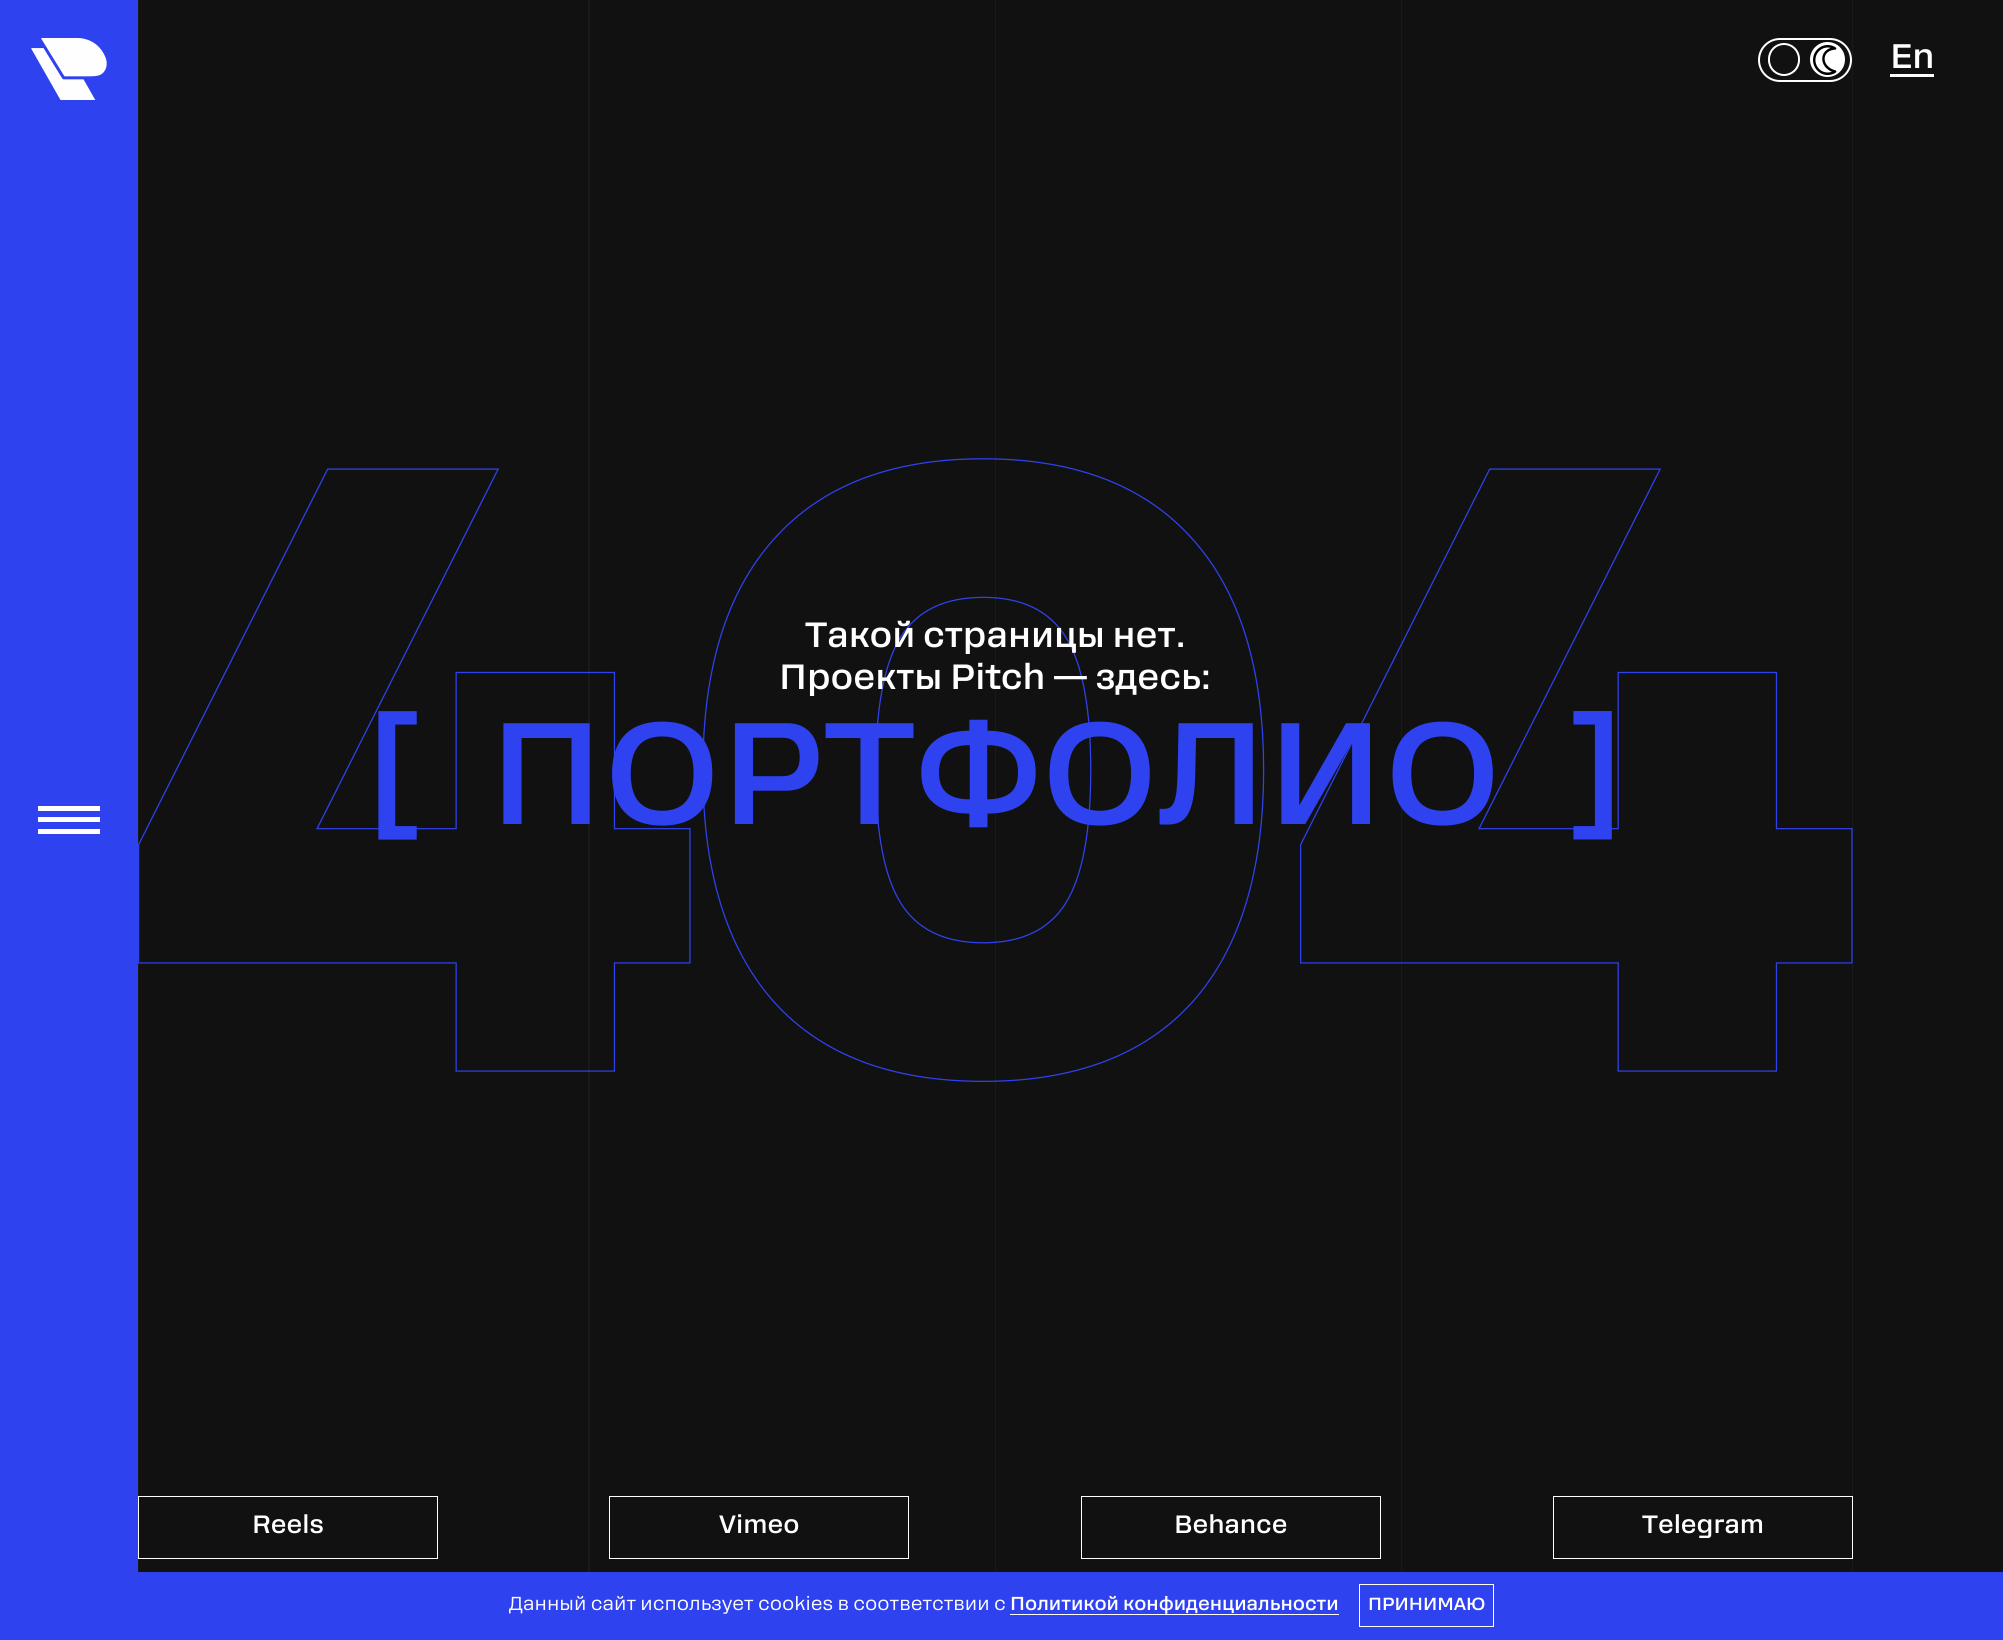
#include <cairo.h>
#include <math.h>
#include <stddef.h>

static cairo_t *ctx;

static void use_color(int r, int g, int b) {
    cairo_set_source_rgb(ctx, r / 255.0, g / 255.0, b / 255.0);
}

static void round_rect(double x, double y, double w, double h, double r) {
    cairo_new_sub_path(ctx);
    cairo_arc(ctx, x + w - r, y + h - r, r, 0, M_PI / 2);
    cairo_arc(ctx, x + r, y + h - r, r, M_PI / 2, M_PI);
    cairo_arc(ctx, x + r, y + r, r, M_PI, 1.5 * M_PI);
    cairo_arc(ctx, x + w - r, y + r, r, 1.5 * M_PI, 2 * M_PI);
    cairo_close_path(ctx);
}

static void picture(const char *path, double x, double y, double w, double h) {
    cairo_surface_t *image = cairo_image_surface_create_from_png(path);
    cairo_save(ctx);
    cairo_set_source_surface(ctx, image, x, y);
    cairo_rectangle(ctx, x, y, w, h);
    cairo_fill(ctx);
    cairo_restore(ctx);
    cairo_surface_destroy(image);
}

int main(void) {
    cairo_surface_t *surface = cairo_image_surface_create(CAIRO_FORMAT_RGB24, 2003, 1640);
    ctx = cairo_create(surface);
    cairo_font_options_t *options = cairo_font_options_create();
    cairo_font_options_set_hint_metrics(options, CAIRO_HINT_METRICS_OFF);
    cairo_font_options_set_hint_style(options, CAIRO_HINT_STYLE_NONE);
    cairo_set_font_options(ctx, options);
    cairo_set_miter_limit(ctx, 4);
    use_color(17, 17, 17);
    cairo_paint(ctx);
    use_color(47, 66, 240);
    cairo_rectangle(ctx, 0, 0, 138, 1640);
    cairo_fill(ctx);
    picture("img1.png", 31, 38, 76, 62);
    use_color(255, 255, 255);
    cairo_rectangle(ctx, 38, 806, 62, 5);
    cairo_fill(ctx);
    cairo_rectangle(ctx, 38, 817, 62, 5);
    cairo_fill(ctx);
    cairo_rectangle(ctx, 38, 829, 62, 5);
    cairo_fill(ctx);
    use_color(26, 26, 26);
    cairo_rectangle(ctx, 138, 0, 1, 1572);
    cairo_fill(ctx);
    cairo_rectangle(ctx, 588, 0, 2, 1572);
    cairo_fill(ctx);
    cairo_rectangle(ctx, 995, 0, 1, 1572);
    cairo_fill(ctx);
    cairo_rectangle(ctx, 1401, 0, 1, 1572);
    cairo_fill(ctx);
    cairo_rectangle(ctx, 1852, 0, 1, 1572);
    cairo_fill(ctx);
    round_rect(1759, 39, 92, 42, 21);
    use_color(255, 255, 255);
    cairo_stroke(ctx);
    round_rect(1769, 44, 30, 31, 15);
    cairo_stroke(ctx);
    cairo_arc(ctx, 1827.5, 59.5, 17.5, 0, 2 * M_PI);
    cairo_fill(ctx);
    picture("img2.png", 1813, 45, 24, 30);
    cairo_select_font_face(ctx, "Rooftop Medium", CAIRO_FONT_SLANT_NORMAL, CAIRO_FONT_WEIGHT_NORMAL);
    cairo_set_font_size(ctx, 34);
    cairo_move_to(ctx, 1890, 68);
    cairo_show_text(ctx, "En");
    cairo_rectangle(ctx, 1890, 74, 44, 3);
    cairo_fill(ctx);
    picture("img3.png", 138, 458, 1715, 624);
    cairo_set_font_size(ctx, 35);
    cairo_move_to(ctx, 805, 647);
    cairo_show_text(ctx, "Такой страницы нет.");
    cairo_move_to(ctx, 779, 689);
    cairo_show_text(ctx, "Проекты Pitch — здесь:");
    cairo_set_font_size(ctx, 144);
    use_color(47, 66, 240);
    cairo_move_to(ctx, 364, 817);
    cairo_show_text(ctx, "[");
    cairo_move_to(ctx, 489, 824);
    cairo_show_text(ctx, "ПОРТФОЛИО");
    cairo_move_to(ctx, 1570, 817);
    cairo_show_text(ctx, "]");
    cairo_rectangle(ctx, 138.5, 1496.5, 299, 62);
    use_color(255, 255, 255);
    cairo_set_line_width(ctx, 1);
    cairo_stroke(ctx);
    cairo_set_font_size(ctx, 25);
    cairo_move_to(ctx, 252, 1533);
    cairo_show_text(ctx, "Reels");
    cairo_rectangle(ctx, 609.5, 1496.5, 299, 62);
    cairo_stroke(ctx);
    cairo_move_to(ctx, 719, 1533);
    cairo_show_text(ctx, "Vimeo");
    cairo_rectangle(ctx, 1081.5, 1496.5, 299, 62);
    cairo_stroke(ctx);
    cairo_move_to(ctx, 1174, 1533);
    cairo_show_text(ctx, "Behance");
    cairo_rectangle(ctx, 1553.5, 1496.5, 299, 62);
    cairo_stroke(ctx);
    cairo_move_to(ctx, 1642, 1533);
    cairo_show_text(ctx, "Telegram");
    use_color(47, 66, 240);
    cairo_rectangle(ctx, 138, 1572, 1865, 68);
    cairo_fill(ctx);
    cairo_select_font_face(ctx, "Rooftop", CAIRO_FONT_SLANT_NORMAL, CAIRO_FONT_WEIGHT_NORMAL);
    cairo_set_font_size(ctx, 18.75);
    use_color(255, 255, 255);
    cairo_move_to(ctx, 509, 1610);
    cairo_show_text(ctx, "Данный сайт использует cookies в соответствии с");
    cairo_select_font_face(ctx, "Rooftop Medium", CAIRO_FONT_SLANT_NORMAL, CAIRO_FONT_WEIGHT_NORMAL);
    cairo_move_to(ctx, 1010, 1610);
    cairo_show_text(ctx, "Политикой конфиденциальности");
    cairo_rectangle(ctx, 1010, 1614, 329, 1);
    cairo_fill(ctx);
    cairo_rectangle(ctx, 1359.5, 1584.5, 134, 42);
    cairo_stroke(ctx);
    cairo_set_font_size(ctx, 17.5);
    cairo_move_to(ctx, 1368, 1610);
    cairo_show_text(ctx, "ПРИНИМАЮ");
    cairo_surface_write_to_png(surface, "result.png");
    cairo_font_options_destroy(options);
    cairo_destroy(ctx);
    cairo_surface_destroy(surface);
    return 0;
}
